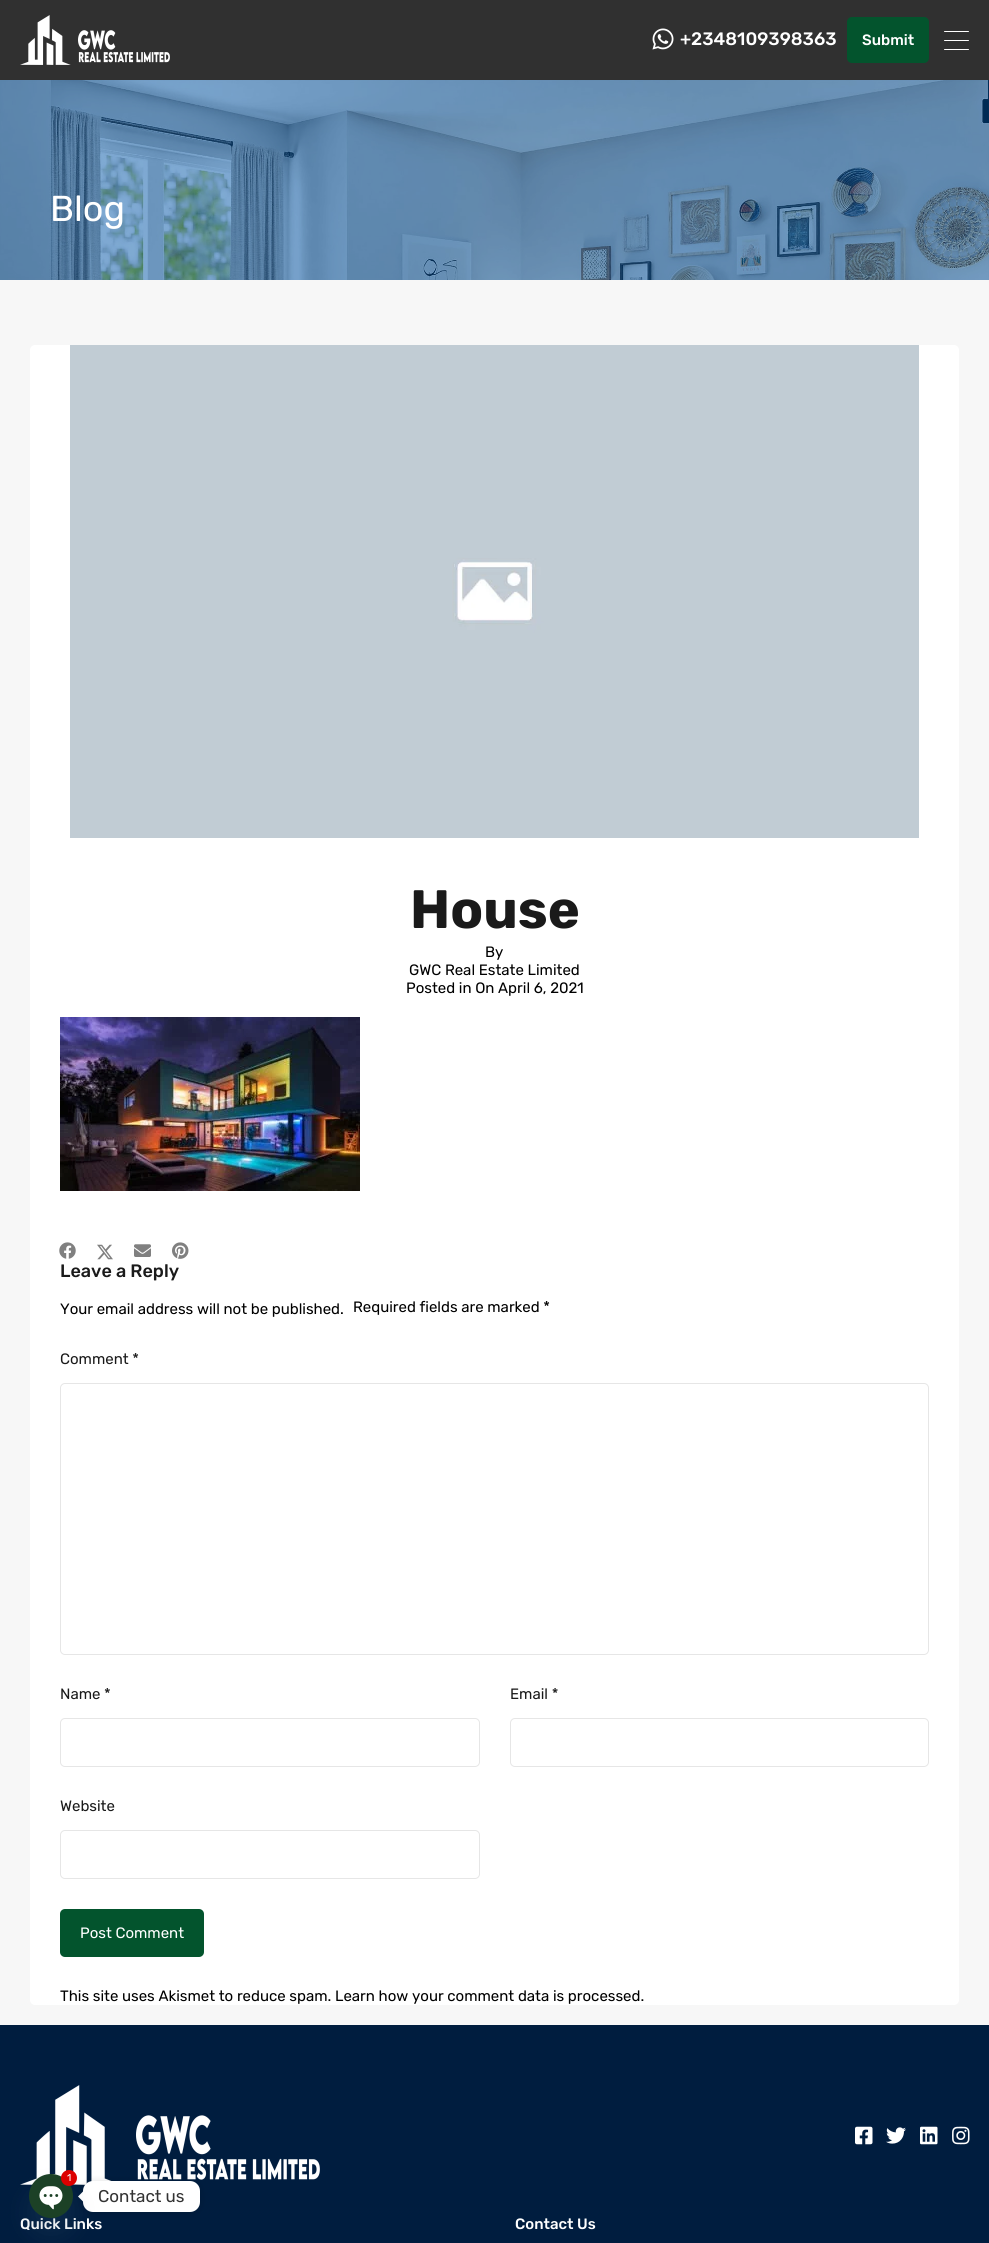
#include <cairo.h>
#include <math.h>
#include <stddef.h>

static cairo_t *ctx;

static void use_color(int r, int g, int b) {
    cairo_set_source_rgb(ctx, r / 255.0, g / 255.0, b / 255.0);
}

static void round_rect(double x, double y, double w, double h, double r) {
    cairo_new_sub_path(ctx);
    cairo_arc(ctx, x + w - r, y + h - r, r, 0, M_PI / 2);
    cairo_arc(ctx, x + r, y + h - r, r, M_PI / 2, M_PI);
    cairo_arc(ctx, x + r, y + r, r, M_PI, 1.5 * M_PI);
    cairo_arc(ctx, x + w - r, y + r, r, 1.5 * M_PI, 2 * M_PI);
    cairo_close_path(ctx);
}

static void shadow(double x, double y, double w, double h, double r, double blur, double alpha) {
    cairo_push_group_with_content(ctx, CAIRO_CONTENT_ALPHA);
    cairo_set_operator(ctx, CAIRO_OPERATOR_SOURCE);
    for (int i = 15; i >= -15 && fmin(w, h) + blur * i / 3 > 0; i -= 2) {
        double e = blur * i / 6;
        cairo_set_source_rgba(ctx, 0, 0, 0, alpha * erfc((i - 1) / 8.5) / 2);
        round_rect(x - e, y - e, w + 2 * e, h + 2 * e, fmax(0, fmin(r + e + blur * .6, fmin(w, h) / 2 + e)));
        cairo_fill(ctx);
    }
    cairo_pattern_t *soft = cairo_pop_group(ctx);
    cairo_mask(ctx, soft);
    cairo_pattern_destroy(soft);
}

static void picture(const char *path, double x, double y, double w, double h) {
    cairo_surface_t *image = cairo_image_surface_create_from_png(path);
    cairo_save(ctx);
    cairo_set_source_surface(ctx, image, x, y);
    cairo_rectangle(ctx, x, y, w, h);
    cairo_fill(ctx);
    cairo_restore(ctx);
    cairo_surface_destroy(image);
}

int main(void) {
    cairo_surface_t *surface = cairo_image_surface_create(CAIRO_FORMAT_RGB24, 989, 2243);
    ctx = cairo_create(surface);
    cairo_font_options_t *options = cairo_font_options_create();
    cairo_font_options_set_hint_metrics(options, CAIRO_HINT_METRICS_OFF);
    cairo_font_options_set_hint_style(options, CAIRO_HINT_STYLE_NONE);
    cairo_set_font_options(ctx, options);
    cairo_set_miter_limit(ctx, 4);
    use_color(247, 247, 247);
    cairo_paint(ctx);
    use_color(48, 48, 48);
    cairo_rectangle(ctx, 0, 0, 989, 80);
    cairo_fill(ctx);
    picture("img1.png", 20, 15, 150, 50);
    picture("img2.png", 652, 28, 22, 22);
    cairo_select_font_face(ctx, "Rubik Medium", CAIRO_FONT_SLANT_NORMAL, CAIRO_FONT_WEIGHT_NORMAL);
    cairo_set_font_size(ctx, 18);
    use_color(255, 255, 255);
    cairo_move_to(ctx, 680, 45);
    cairo_show_text(ctx, "+2348109398363");
    use_color(3, 84, 45);
    round_rect(847, 17, 82, 46, 5);
    cairo_fill(ctx);
    cairo_set_font_size(ctx, 15);
    use_color(255, 255, 255);
    cairo_move_to(ctx, 862, 45);
    cairo_show_text(ctx, "Submit");
    round_rect(944, 40, 25, 1, 0.5);
    cairo_fill(ctx);
    round_rect(944, 31, 25, 1, 0.5);
    cairo_fill(ctx);
    round_rect(944, 49, 25, 1, 0.5);
    cairo_fill(ctx);
    picture("img3.png", 0, 80, 989, 200);
    cairo_select_font_face(ctx, "Rubik", CAIRO_FONT_SLANT_NORMAL, CAIRO_FONT_WEIGHT_NORMAL);
    cairo_set_font_size(ctx, 36);
    cairo_move_to(ctx, 50, 221);
    cairo_show_text(ctx, "Blog");
    round_rect(30, 345, 929, 1660, 5);
    cairo_fill(ctx);
    picture("img4.png", 70, 345, 849, 493);
    cairo_select_font_face(ctx, "Rubik", CAIRO_FONT_SLANT_NORMAL, CAIRO_FONT_WEIGHT_BOLD);
    cairo_set_font_size(ctx, 54);
    use_color(26, 26, 26);
    cairo_move_to(ctx, 410, 928);
    cairo_show_text(ctx, "House");
    cairo_select_font_face(ctx, "Rubik", CAIRO_FONT_SLANT_NORMAL, CAIRO_FONT_WEIGHT_NORMAL);
    cairo_set_font_size(ctx, 15);
    use_color(0, 0, 0);
    cairo_move_to(ctx, 485, 957);
    cairo_show_text(ctx, "By");
    cairo_move_to(ctx, 409, 975);
    cairo_show_text(ctx, "GWC Real Estate Limited");
    cairo_move_to(ctx, 406, 993);
    cairo_show_text(ctx, "Posted in On April 6, 2021");
    picture("img5.png", 60, 1017, 300, 174);
    picture("img6.png", 59, 1242, 17, 17);
    picture("img7.png", 97, 1244, 16, 16);
    picture("img8.png", 134, 1244, 17, 13);
    picture("img9.png", 172, 1242, 17, 17);
    cairo_select_font_face(ctx, "Rubik Medium", CAIRO_FONT_SLANT_NORMAL, CAIRO_FONT_WEIGHT_NORMAL);
    cairo_set_font_size(ctx, 18);
    use_color(26, 26, 26);
    cairo_move_to(ctx, 60, 1277);
    cairo_show_text(ctx, "Leave a Reply");
    cairo_select_font_face(ctx, "Rubik", CAIRO_FONT_SLANT_NORMAL, CAIRO_FONT_WEIGHT_NORMAL);
    cairo_set_font_size(ctx, 15);
    use_color(0, 0, 0);
    cairo_move_to(ctx, 60, 1314);
    cairo_show_text(ctx, "Your email address will not be published.");
    cairo_move_to(ctx, 353, 1312);
    cairo_show_text(ctx, "Required fields are marked *");
    use_color(26, 26, 26);
    cairo_move_to(ctx, 60, 1364);
    cairo_show_text(ctx, "Comment *");
    round_rect(60.5, 1383.5, 868, 271, 4.5);
    use_color(230, 230, 230);
    cairo_set_line_width(ctx, 1);
    cairo_stroke(ctx);
    use_color(26, 26, 26);
    cairo_move_to(ctx, 60, 1699);
    cairo_show_text(ctx, "Name *");
    round_rect(60.5, 1718.5, 419, 48, 4.5);
    use_color(230, 230, 230);
    cairo_stroke(ctx);
    use_color(26, 26, 26);
    cairo_move_to(ctx, 510, 1699);
    cairo_show_text(ctx, "Email *");
    round_rect(510.5, 1718.5, 418, 48, 4.5);
    use_color(230, 230, 230);
    cairo_stroke(ctx);
    use_color(26, 26, 26);
    cairo_move_to(ctx, 60, 1811);
    cairo_show_text(ctx, "Website");
    round_rect(60.5, 1830.5, 419, 48, 4.5);
    use_color(230, 230, 230);
    cairo_stroke(ctx);
    use_color(3, 84, 45);
    round_rect(60, 1909, 144, 48, 5);
    cairo_fill(ctx);
    use_color(255, 255, 255);
    cairo_move_to(ctx, 80, 1938);
    cairo_show_text(ctx, "Post Comment");
    use_color(0, 0, 0);
    cairo_move_to(ctx, 60, 2001);
    cairo_show_text(ctx, "This site uses Akismet to reduce spam. Learn how your comment data is processed.");
    use_color(0, 29, 63);
    cairo_rectangle(ctx, 0, 2025, 989, 218);
    cairo_fill(ctx);
    picture("img10.png", 20, 2085, 300, 100);
    picture("img11.png", 855, 2126, 18, 19);
    picture("img12.png", 886, 2127, 20, 17);
    picture("img13.png", 920, 2126, 18, 19);
    picture("img14.png", 952, 2126, 18, 19);
    cairo_select_font_face(ctx, "Rubik Medium", CAIRO_FONT_SLANT_NORMAL, CAIRO_FONT_WEIGHT_NORMAL);
    use_color(255, 255, 255);
    cairo_move_to(ctx, 20, 2229);
    cairo_show_text(ctx, "Quick Links");
    cairo_move_to(ctx, 515, 2229);
    cairo_show_text(ctx, "Contact Us");
    use_color(0, 0, 0);
    shadow(83, 2182, 117, 31, 10, 4, 0.15);
    use_color(255, 255, 255);
    round_rect(83, 2181, 117, 31, 10);
    cairo_fill(ctx);
    cairo_new_path(ctx);
    cairo_move_to(ctx, 83, 2191.5);
    cairo_line_to(ctx, 83, 2201.5);
    cairo_line_to(ctx, 78, 2196.5);
    cairo_close_path(ctx);
    cairo_fill(ctx);
    use_color(73, 104, 126);
    shadow(29, 2190, 44, 44, 22, 12, 0.16);
    picture("img15.png", 29, 2174, 44, 44);
    use_color(221, 0, 0);
    cairo_arc(ctx, 69, 2178, 8, 0, 2 * M_PI);
    cairo_fill(ctx);
    cairo_select_font_face(ctx, "Rubik", CAIRO_FONT_SLANT_NORMAL, CAIRO_FONT_WEIGHT_NORMAL);
    cairo_set_font_size(ctx, 10);
    use_color(255, 255, 255);
    cairo_move_to(ctx, 67, 2181);
    cairo_show_text(ctx, "1");
    cairo_set_font_size(ctx, 17);
    use_color(51, 51, 51);
    cairo_move_to(ctx, 98, 2202);
    cairo_show_text(ctx, "Contact us");
    cairo_surface_write_to_png(surface, "result.png");
    cairo_font_options_destroy(options);
    cairo_destroy(ctx);
    cairo_surface_destroy(surface);
    return 0;
}
